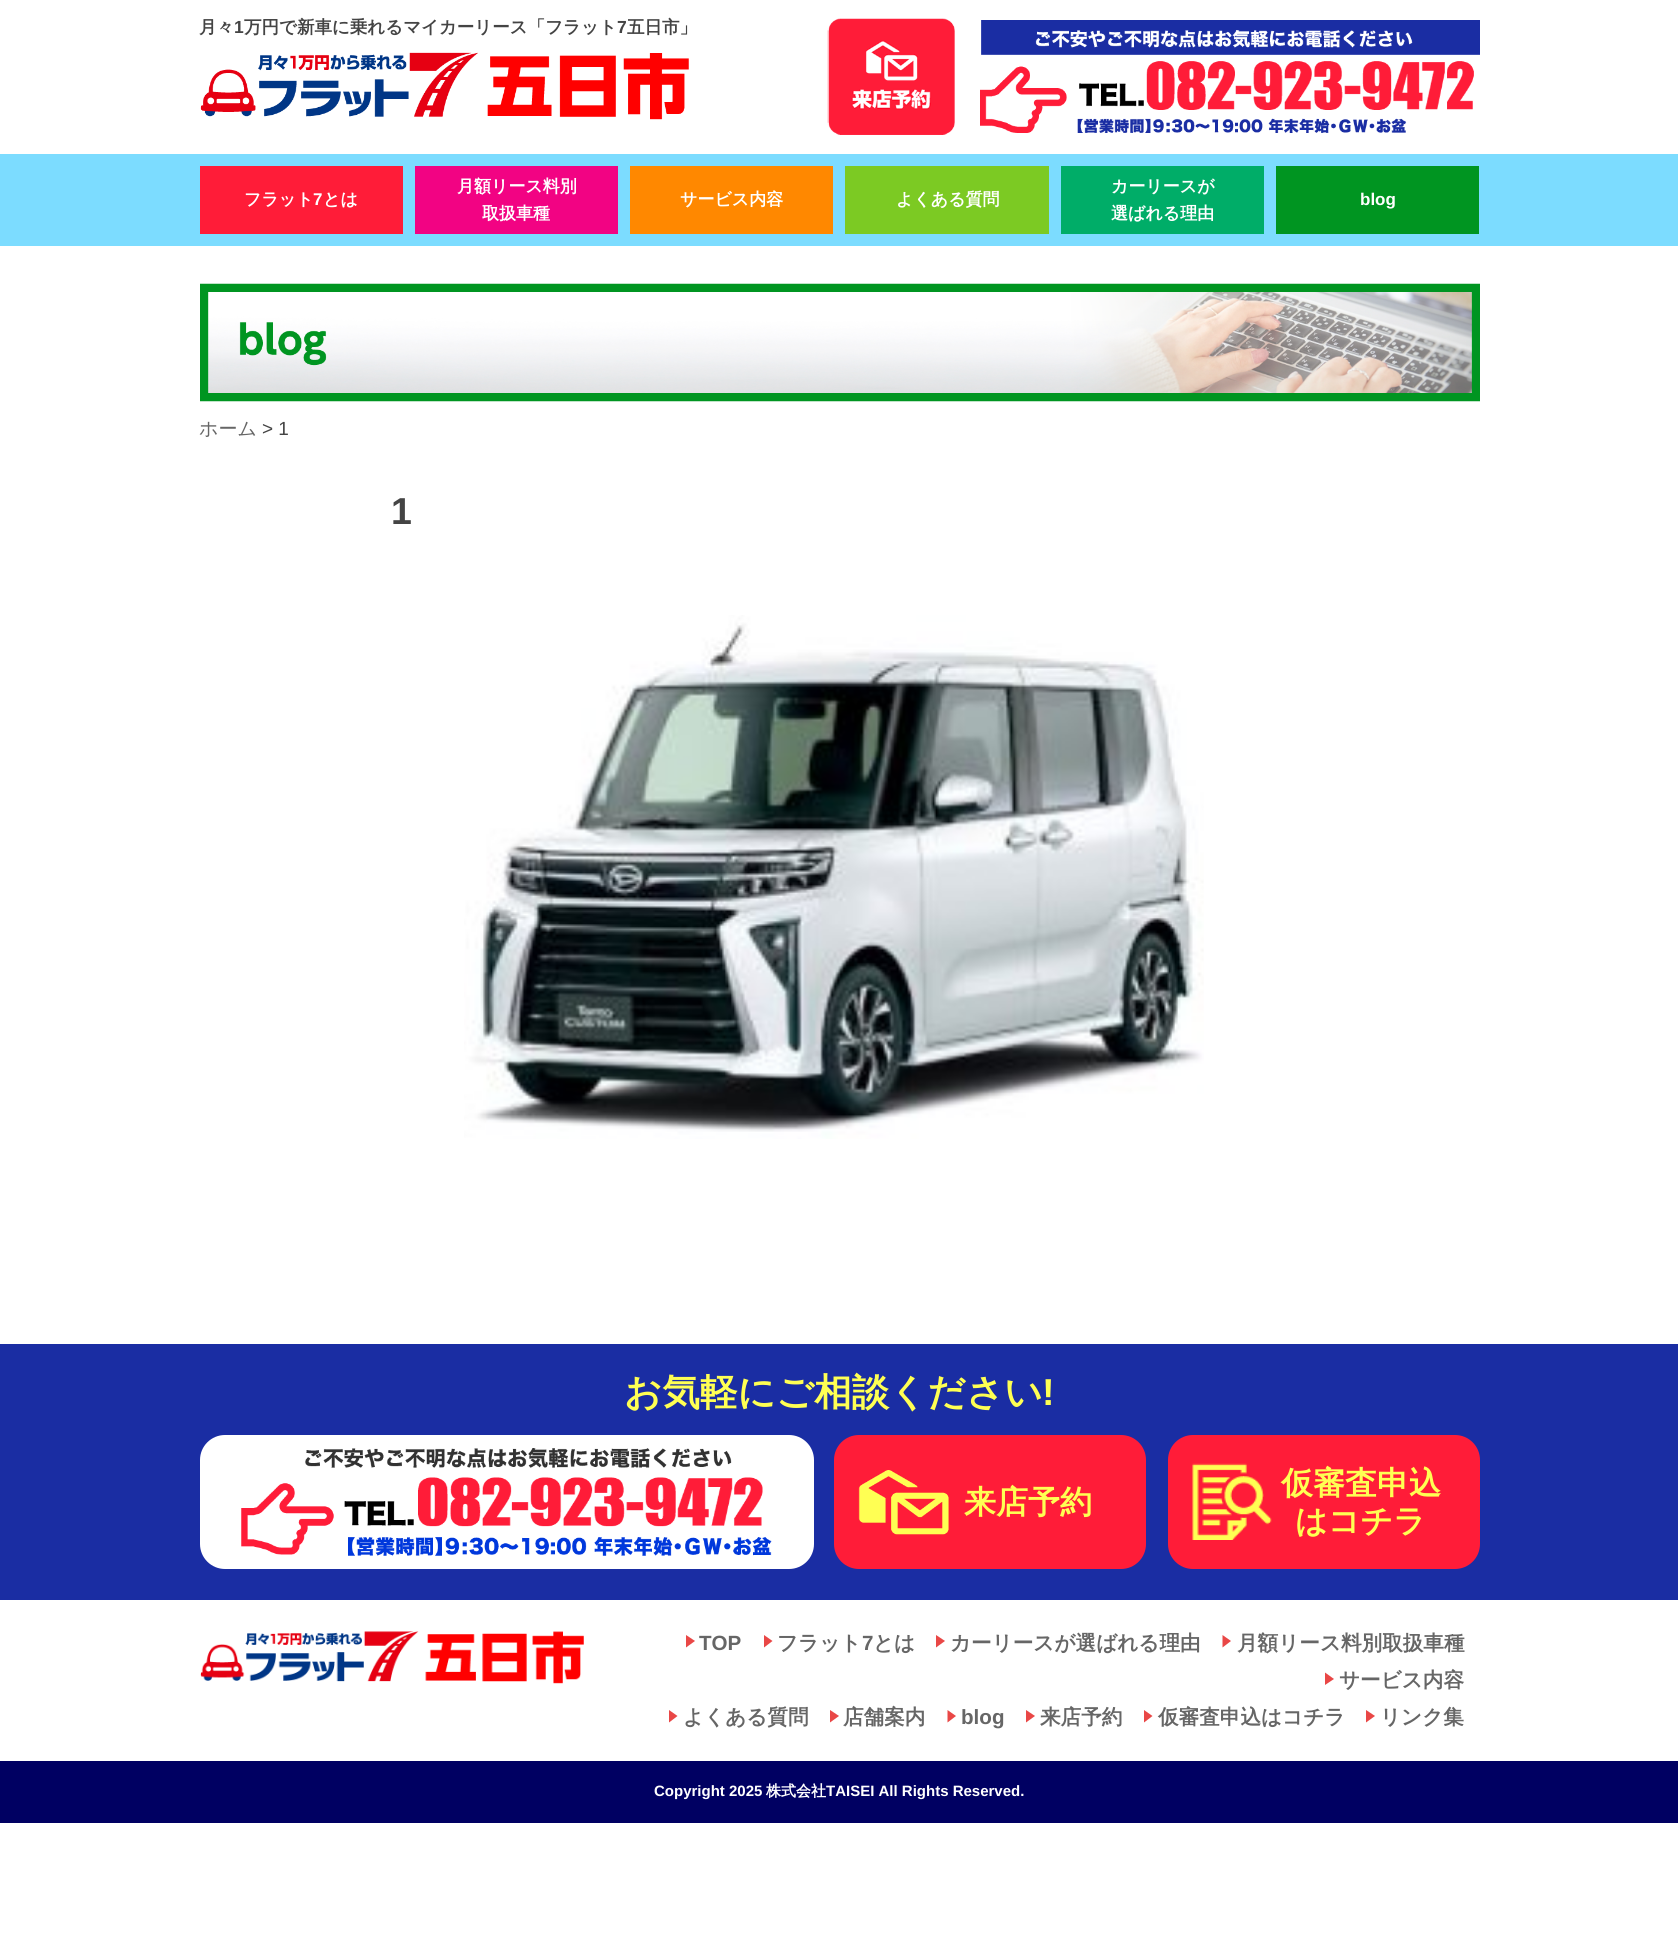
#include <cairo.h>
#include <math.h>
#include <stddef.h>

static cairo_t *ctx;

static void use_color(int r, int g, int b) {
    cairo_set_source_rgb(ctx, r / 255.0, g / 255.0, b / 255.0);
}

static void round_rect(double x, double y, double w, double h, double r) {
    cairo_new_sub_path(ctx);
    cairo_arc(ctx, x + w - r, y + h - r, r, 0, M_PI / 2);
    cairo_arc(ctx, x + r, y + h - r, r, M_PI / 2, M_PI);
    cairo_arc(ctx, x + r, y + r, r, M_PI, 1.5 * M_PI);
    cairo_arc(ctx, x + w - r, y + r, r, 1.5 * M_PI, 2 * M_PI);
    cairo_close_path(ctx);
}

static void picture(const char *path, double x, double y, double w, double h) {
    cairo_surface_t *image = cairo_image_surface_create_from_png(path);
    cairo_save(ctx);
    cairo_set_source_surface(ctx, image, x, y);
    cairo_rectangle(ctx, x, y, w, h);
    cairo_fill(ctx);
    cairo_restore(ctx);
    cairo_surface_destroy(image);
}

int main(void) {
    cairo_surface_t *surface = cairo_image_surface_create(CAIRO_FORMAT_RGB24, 1678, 1945);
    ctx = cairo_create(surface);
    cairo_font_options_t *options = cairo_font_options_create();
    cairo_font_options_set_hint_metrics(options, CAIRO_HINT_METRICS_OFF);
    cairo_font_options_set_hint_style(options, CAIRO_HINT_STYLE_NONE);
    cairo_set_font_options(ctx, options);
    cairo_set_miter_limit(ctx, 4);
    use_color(255, 255, 255);
    cairo_paint(ctx);
    cairo_select_font_face(ctx, "WenQuanYi Zen Hei", CAIRO_FONT_SLANT_NORMAL, CAIRO_FONT_WEIGHT_BOLD);
    cairo_set_font_size(ctx, 17.5);
    use_color(68, 68, 68);
    cairo_move_to(ctx, 199, 33);
    cairo_show_text(ctx, "月々");
    cairo_select_font_face(ctx, "Liberation Sans", CAIRO_FONT_SLANT_NORMAL, CAIRO_FONT_WEIGHT_BOLD);
    cairo_move_to(ctx, 234, 33);
    cairo_show_text(ctx, "1");
    cairo_select_font_face(ctx, "WenQuanYi Zen Hei", CAIRO_FONT_SLANT_NORMAL, CAIRO_FONT_WEIGHT_BOLD);
    cairo_move_to(ctx, 244, 33);
    cairo_show_text(ctx, "万円で新車に乗れるマイカーリース「フラット");
    cairo_select_font_face(ctx, "Liberation Sans", CAIRO_FONT_SLANT_NORMAL, CAIRO_FONT_WEIGHT_BOLD);
    cairo_move_to(ctx, 617, 33);
    cairo_show_text(ctx, "7");
    cairo_select_font_face(ctx, "WenQuanYi Zen Hei", CAIRO_FONT_SLANT_NORMAL, CAIRO_FONT_WEIGHT_BOLD);
    cairo_move_to(ctx, 627, 33);
    cairo_show_text(ctx, "五日市」");
    picture("img1.png", 200, 52, 489, 68);
    picture("img2.png", 827, 18, 128, 117);
    picture("img3.png", 980, 20, 500, 113);
    use_color(124, 220, 255);
    cairo_rectangle(ctx, 0, 154, 1678, 92);
    cairo_fill(ctx);
    use_color(255, 28, 56);
    cairo_rectangle(ctx, 200, 166, 203, 68);
    cairo_fill(ctx);
    cairo_set_font_size(ctx, 17);
    use_color(255, 255, 255);
    cairo_move_to(ctx, 244, 205);
    cairo_show_text(ctx, "フラット");
    cairo_select_font_face(ctx, "Liberation Sans", CAIRO_FONT_SLANT_NORMAL, CAIRO_FONT_WEIGHT_BOLD);
    cairo_move_to(ctx, 313, 205);
    cairo_show_text(ctx, "7");
    cairo_select_font_face(ctx, "WenQuanYi Zen Hei", CAIRO_FONT_SLANT_NORMAL, CAIRO_FONT_WEIGHT_BOLD);
    cairo_move_to(ctx, 323, 205);
    cairo_show_text(ctx, "とは");
    use_color(242, 3, 131);
    cairo_rectangle(ctx, 415, 166, 203, 68);
    cairo_fill(ctx);
    use_color(255, 255, 255);
    cairo_move_to(ctx, 457, 192);
    cairo_show_text(ctx, "月額リース料別");
    cairo_move_to(ctx, 482, 219);
    cairo_show_text(ctx, "取扱車種");
    use_color(255, 136, 0);
    cairo_rectangle(ctx, 630, 166, 203, 68);
    cairo_fill(ctx);
    use_color(255, 255, 255);
    cairo_move_to(ctx, 680, 205);
    cairo_show_text(ctx, "サービス内容");
    use_color(124, 202, 35);
    cairo_rectangle(ctx, 845, 166, 204, 68);
    cairo_fill(ctx);
    use_color(255, 255, 255);
    cairo_move_to(ctx, 896, 205);
    cairo_show_text(ctx, "よくある質問");
    use_color(0, 173, 104);
    cairo_rectangle(ctx, 1061, 166, 203, 68);
    cairo_fill(ctx);
    use_color(255, 255, 255);
    cairo_move_to(ctx, 1111, 192);
    cairo_show_text(ctx, "カーリースが");
    cairo_move_to(ctx, 1111, 219);
    cairo_show_text(ctx, "選ばれる理由");
    use_color(0, 149, 33);
    cairo_rectangle(ctx, 1276, 166, 203, 68);
    cairo_fill(ctx);
    cairo_select_font_face(ctx, "Liberation Sans", CAIRO_FONT_SLANT_NORMAL, CAIRO_FONT_WEIGHT_BOLD);
    use_color(255, 255, 255);
    cairo_move_to(ctx, 1360, 205);
    cairo_show_text(ctx, "blog");
    picture("img4.png", 200, 283, 1280, 119);
    cairo_select_font_face(ctx, "WenQuanYi Zen Hei Medium", CAIRO_FONT_SLANT_NORMAL, CAIRO_FONT_WEIGHT_NORMAL);
    cairo_set_font_size(ctx, 19);
    use_color(102, 102, 102);
    cairo_move_to(ctx, 199, 435);
    cairo_show_text(ctx, "ホーム");
    cairo_select_font_face(ctx, "Liberation Sans", CAIRO_FONT_SLANT_NORMAL, CAIRO_FONT_WEIGHT_NORMAL);
    use_color(68, 68, 68);
    cairo_move_to(ctx, 262, 435);
    cairo_show_text(ctx, "> 1");
    cairo_select_font_face(ctx, "Liberation Sans", CAIRO_FONT_SLANT_NORMAL, CAIRO_FONT_WEIGHT_BOLD);
    cairo_set_font_size(ctx, 37.5);
    cairo_move_to(ctx, 391, 524);
    cairo_show_text(ctx, "1");
    picture("img5.png", 464, 615, 740, 524);
    use_color(26, 45, 163);
    cairo_rectangle(ctx, 0, 1344, 1678, 256);
    cairo_fill(ctx);
    cairo_select_font_face(ctx, "WenQuanYi Zen Hei", CAIRO_FONT_SLANT_NORMAL, CAIRO_FONT_WEIGHT_BOLD);
    use_color(255, 255, 83);
    cairo_move_to(ctx, 624, 1405);
    cairo_show_text(ctx, "お気軽にご相談ください");
    cairo_select_font_face(ctx, "Liberation Sans", CAIRO_FONT_SLANT_NORMAL, CAIRO_FONT_WEIGHT_BOLD);
    cairo_move_to(ctx, 1042, 1405);
    cairo_show_text(ctx, "!");
    use_color(255, 255, 255);
    round_rect(200, 1435, 614, 134, 25);
    cairo_fill(ctx);
    picture("img6.png", 241, 1448, 531, 108);
    use_color(255, 28, 56);
    round_rect(834, 1435, 312, 134, 25);
    cairo_fill(ctx);
    picture("img7.png", 858, 1470, 91, 65);
    cairo_select_font_face(ctx, "WenQuanYi Zen Hei", CAIRO_FONT_SLANT_NORMAL, CAIRO_FONT_WEIGHT_BOLD);
    cairo_set_font_size(ctx, 32);
    use_color(255, 255, 83);
    cairo_move_to(ctx, 964, 1513);
    cairo_show_text(ctx, "来店予約");
    use_color(255, 28, 56);
    round_rect(1168, 1435, 312, 134, 25);
    cairo_fill(ctx);
    picture("img8.png", 1192, 1463, 80, 77);
    use_color(255, 255, 83);
    cairo_move_to(ctx, 1281, 1494);
    cairo_show_text(ctx, "仮審査申込");
    cairo_move_to(ctx, 1295, 1532);
    cairo_show_text(ctx, "はコチラ");
    picture("img9.png", 200, 1631, 384, 53);
    use_color(233, 71, 70);
    cairo_new_path(ctx);
    cairo_move_to(ctx, 686, 1647.5);
    cairo_line_to(ctx, 686, 1635);
    cairo_line_to(ctx, 695, 1641);
    cairo_close_path(ctx);
    cairo_fill(ctx);
    cairo_select_font_face(ctx, "Liberation Sans", CAIRO_FONT_SLANT_NORMAL, CAIRO_FONT_WEIGHT_BOLD);
    cairo_set_font_size(ctx, 20.6);
    use_color(102, 102, 102);
    cairo_move_to(ctx, 699, 1650);
    cairo_show_text(ctx, "TOP");
    use_color(233, 71, 70);
    cairo_new_path(ctx);
    cairo_move_to(ctx, 764, 1647.5);
    cairo_line_to(ctx, 764, 1635);
    cairo_line_to(ctx, 772.5, 1641);
    cairo_close_path(ctx);
    cairo_fill(ctx);
    cairo_select_font_face(ctx, "WenQuanYi Zen Hei", CAIRO_FONT_SLANT_NORMAL, CAIRO_FONT_WEIGHT_BOLD);
    use_color(102, 102, 102);
    cairo_move_to(ctx, 777, 1650);
    cairo_show_text(ctx, "フラット");
    cairo_select_font_face(ctx, "Liberation Sans", CAIRO_FONT_SLANT_NORMAL, CAIRO_FONT_WEIGHT_BOLD);
    cairo_move_to(ctx, 862, 1650);
    cairo_show_text(ctx, "7");
    cairo_select_font_face(ctx, "WenQuanYi Zen Hei", CAIRO_FONT_SLANT_NORMAL, CAIRO_FONT_WEIGHT_BOLD);
    cairo_move_to(ctx, 873, 1650);
    cairo_show_text(ctx, "とは");
    use_color(233, 71, 70);
    cairo_new_path(ctx);
    cairo_move_to(ctx, 936, 1647.5);
    cairo_line_to(ctx, 936, 1635);
    cairo_line_to(ctx, 945, 1641);
    cairo_close_path(ctx);
    cairo_fill(ctx);
    use_color(102, 102, 102);
    cairo_move_to(ctx, 950, 1650);
    cairo_show_text(ctx, "カーリースが選ばれる理由");
    use_color(233, 71, 70);
    cairo_new_path(ctx);
    cairo_move_to(ctx, 1222.5, 1647.5);
    cairo_line_to(ctx, 1222.5, 1635);
    cairo_line_to(ctx, 1231, 1641);
    cairo_close_path(ctx);
    cairo_fill(ctx);
    use_color(102, 102, 102);
    cairo_move_to(ctx, 1237, 1650);
    cairo_show_text(ctx, "月額リース料別取扱車種");
    use_color(233, 71, 70);
    cairo_new_path(ctx);
    cairo_move_to(ctx, 1325, 1685);
    cairo_line_to(ctx, 1325, 1672.5);
    cairo_line_to(ctx, 1334, 1679);
    cairo_close_path(ctx);
    cairo_fill(ctx);
    use_color(102, 102, 102);
    cairo_move_to(ctx, 1339, 1687);
    cairo_show_text(ctx, "サービス内容");
    use_color(233, 71, 70);
    cairo_new_path(ctx);
    cairo_move_to(ctx, 669, 1722.5);
    cairo_line_to(ctx, 669, 1710);
    cairo_line_to(ctx, 677.5, 1716);
    cairo_close_path(ctx);
    cairo_fill(ctx);
    use_color(102, 102, 102);
    cairo_move_to(ctx, 683, 1724);
    cairo_show_text(ctx, "よくある質問");
    use_color(233, 71, 70);
    cairo_new_path(ctx);
    cairo_move_to(ctx, 830, 1722.5);
    cairo_line_to(ctx, 830, 1710);
    cairo_line_to(ctx, 839, 1716);
    cairo_close_path(ctx);
    cairo_fill(ctx);
    use_color(102, 102, 102);
    cairo_move_to(ctx, 843, 1724);
    cairo_show_text(ctx, "店舗案内");
    use_color(233, 71, 70);
    cairo_new_path(ctx);
    cairo_move_to(ctx, 947.5, 1722.5);
    cairo_line_to(ctx, 947.5, 1710);
    cairo_line_to(ctx, 956, 1716);
    cairo_close_path(ctx);
    cairo_fill(ctx);
    cairo_select_font_face(ctx, "Liberation Sans", CAIRO_FONT_SLANT_NORMAL, CAIRO_FONT_WEIGHT_BOLD);
    use_color(102, 102, 102);
    cairo_move_to(ctx, 961, 1724);
    cairo_show_text(ctx, "blog");
    use_color(233, 71, 70);
    cairo_new_path(ctx);
    cairo_move_to(ctx, 1026, 1722.5);
    cairo_line_to(ctx, 1026, 1710);
    cairo_line_to(ctx, 1035, 1716);
    cairo_close_path(ctx);
    cairo_fill(ctx);
    cairo_select_font_face(ctx, "WenQuanYi Zen Hei", CAIRO_FONT_SLANT_NORMAL, CAIRO_FONT_WEIGHT_BOLD);
    use_color(102, 102, 102);
    cairo_move_to(ctx, 1040, 1724);
    cairo_show_text(ctx, "来店予約");
    use_color(233, 71, 70);
    cairo_new_path(ctx);
    cairo_move_to(ctx, 1144, 1722.5);
    cairo_line_to(ctx, 1144, 1710);
    cairo_line_to(ctx, 1152.5, 1716);
    cairo_close_path(ctx);
    cairo_fill(ctx);
    use_color(102, 102, 102);
    cairo_move_to(ctx, 1158, 1724);
    cairo_show_text(ctx, "仮審査申込はコチラ");
    use_color(233, 71, 70);
    cairo_new_path(ctx);
    cairo_move_to(ctx, 1366, 1722.5);
    cairo_line_to(ctx, 1366, 1710);
    cairo_line_to(ctx, 1375, 1716);
    cairo_close_path(ctx);
    cairo_fill(ctx);
    use_color(102, 102, 102);
    cairo_move_to(ctx, 1380, 1724);
    cairo_show_text(ctx, "リンク集");
    use_color(0, 0, 98);
    cairo_rectangle(ctx, 0, 1761, 1678, 62);
    cairo_fill(ctx);
    cairo_select_font_face(ctx, "Liberation Sans", CAIRO_FONT_SLANT_NORMAL, CAIRO_FONT_WEIGHT_BOLD);
    cairo_set_font_size(ctx, 15);
    use_color(255, 255, 255);
    cairo_move_to(ctx, 654, 1796);
    cairo_show_text(ctx, "Copyright 2025");
    cairo_select_font_face(ctx, "WenQuanYi Zen Hei", CAIRO_FONT_SLANT_NORMAL, CAIRO_FONT_WEIGHT_BOLD);
    cairo_move_to(ctx, 766, 1796);
    cairo_show_text(ctx, "株式会社");
    cairo_select_font_face(ctx, "Liberation Sans", CAIRO_FONT_SLANT_NORMAL, CAIRO_FONT_WEIGHT_BOLD);
    cairo_move_to(ctx, 826, 1796);
    cairo_show_text(ctx, "TAISEI All Rights Reserved.");
    cairo_surface_write_to_png(surface, "result.png");
    cairo_font_options_destroy(options);
    cairo_destroy(ctx);
    cairo_surface_destroy(surface);
    return 0;
}
